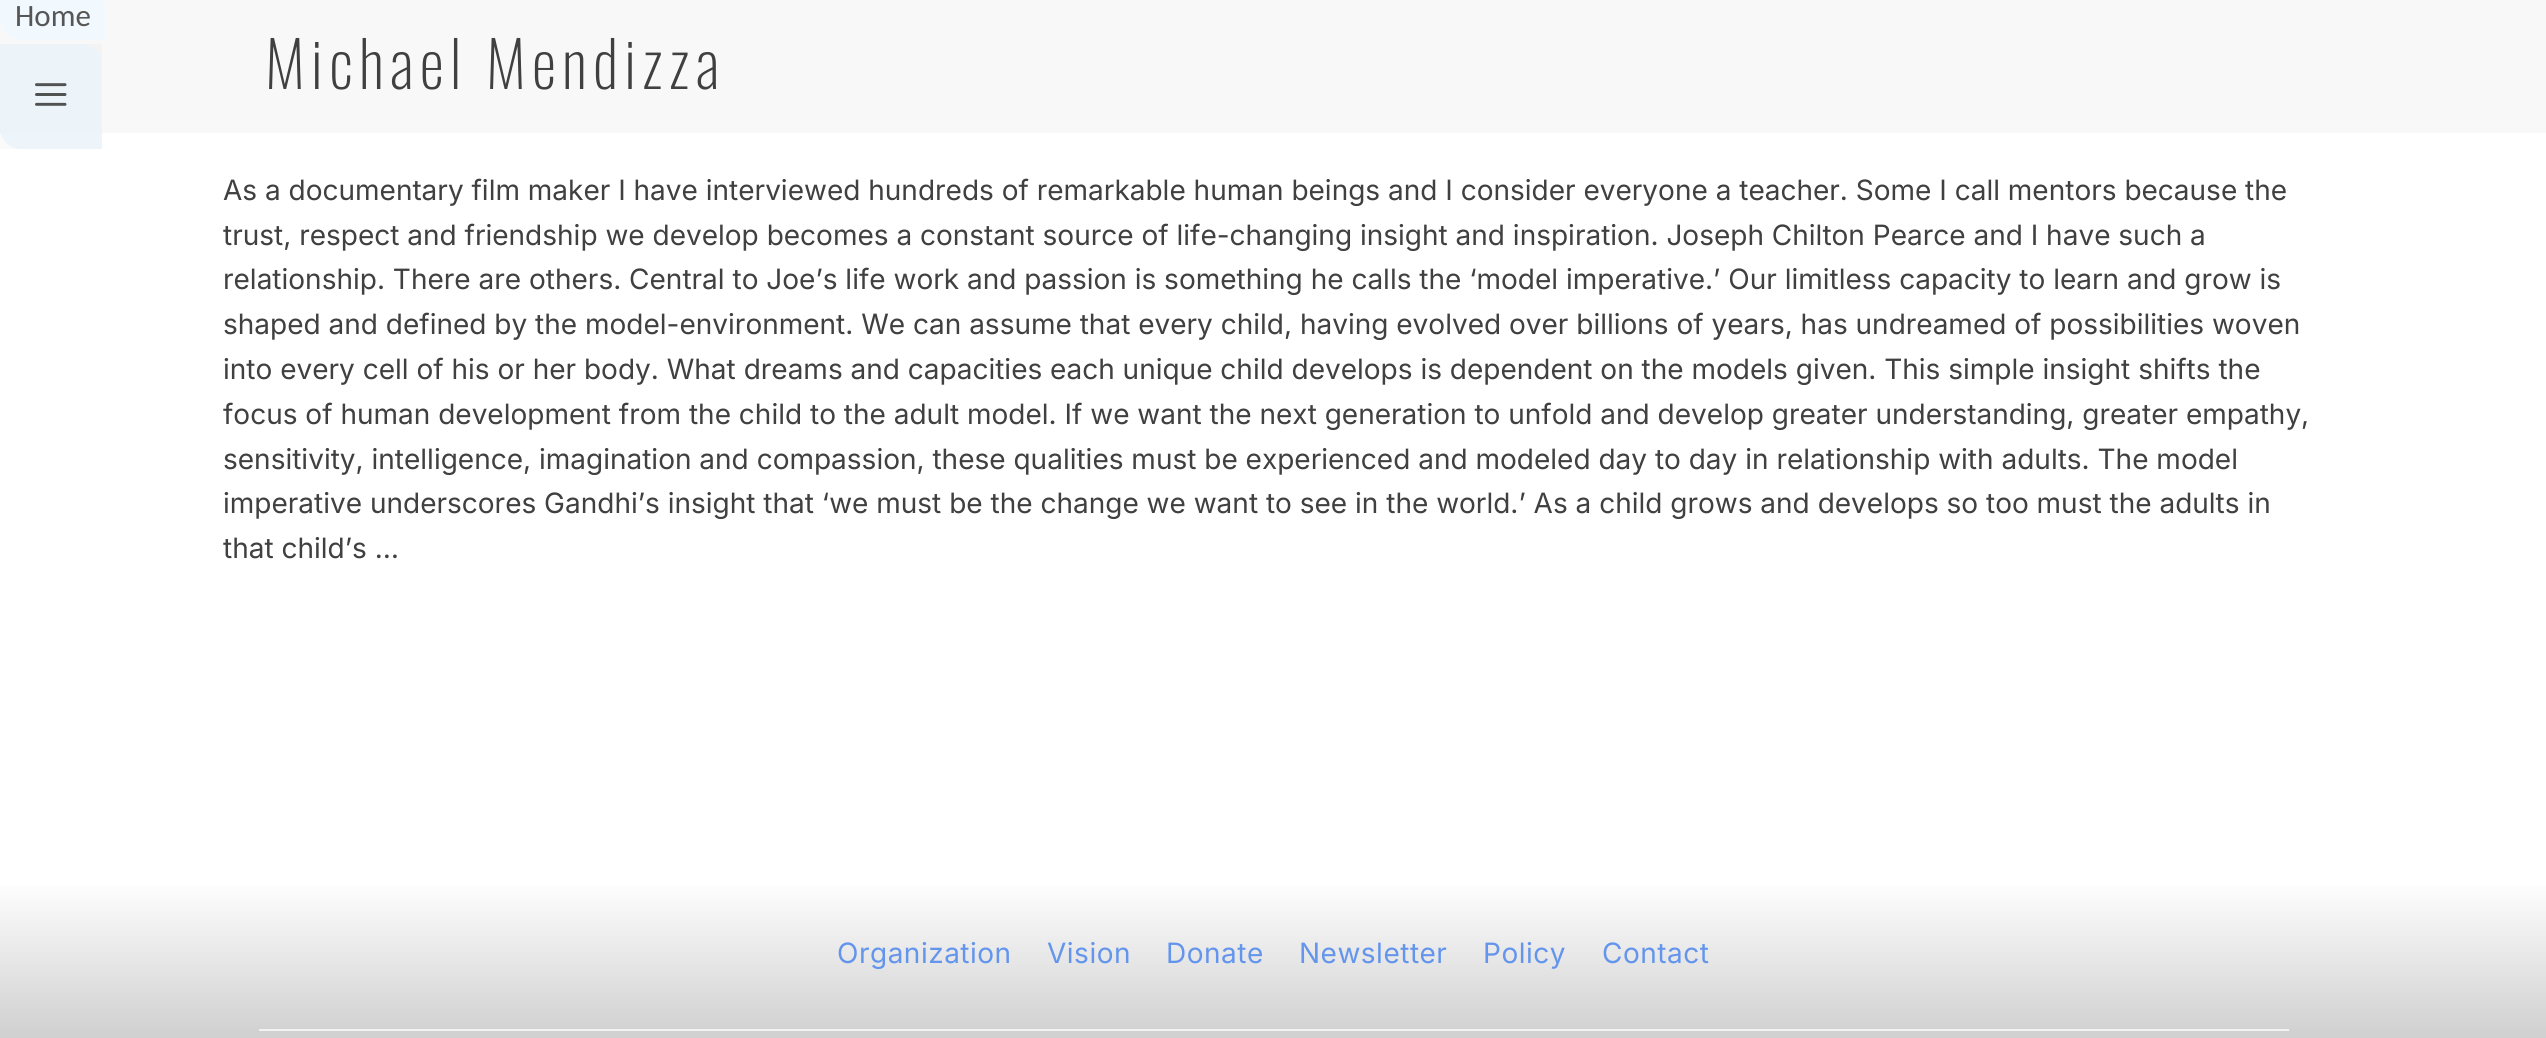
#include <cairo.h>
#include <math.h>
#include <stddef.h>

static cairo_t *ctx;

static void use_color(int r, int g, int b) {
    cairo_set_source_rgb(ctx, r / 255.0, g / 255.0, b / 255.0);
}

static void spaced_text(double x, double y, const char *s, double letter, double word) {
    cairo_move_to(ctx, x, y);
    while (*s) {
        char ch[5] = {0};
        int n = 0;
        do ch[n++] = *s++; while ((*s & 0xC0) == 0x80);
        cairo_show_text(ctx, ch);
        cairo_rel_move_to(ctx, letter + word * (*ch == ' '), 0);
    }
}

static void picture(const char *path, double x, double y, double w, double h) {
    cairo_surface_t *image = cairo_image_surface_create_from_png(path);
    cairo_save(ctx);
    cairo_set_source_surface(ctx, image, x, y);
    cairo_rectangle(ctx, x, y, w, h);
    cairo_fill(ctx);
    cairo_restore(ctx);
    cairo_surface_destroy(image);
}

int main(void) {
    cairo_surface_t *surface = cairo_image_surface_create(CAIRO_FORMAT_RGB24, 2546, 1038);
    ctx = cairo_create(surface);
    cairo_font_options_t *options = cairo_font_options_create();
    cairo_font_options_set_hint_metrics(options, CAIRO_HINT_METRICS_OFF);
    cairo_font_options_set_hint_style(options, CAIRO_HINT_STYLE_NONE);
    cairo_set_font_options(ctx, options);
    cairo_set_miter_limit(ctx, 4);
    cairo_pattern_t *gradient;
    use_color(255, 255, 255);
    cairo_paint(ctx);
    use_color(250, 250, 250);
    cairo_rectangle(ctx, 0, 133, 102, 16);
    cairo_fill(ctx);
    use_color(248, 248, 248);
    cairo_rectangle(ctx, 0, 0, 2546, 133);
    cairo_fill(ctx);
    use_color(241, 248, 254);
    cairo_new_path(ctx);
    cairo_move_to(ctx, 0, -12);
    cairo_line_to(ctx, 84, -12);
    cairo_curve_to(ctx, 95.5, -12, 105, -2.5, 105, 9);
    cairo_line_to(ctx, 105, 40);
    cairo_line_to(ctx, 21, 40);
    cairo_curve_to(ctx, 9.5, 40, 0, 30.5, 0, 19);
    cairo_close_path(ctx);
    cairo_fill(ctx);
    cairo_select_font_face(ctx, "Carlito", CAIRO_FONT_SLANT_NORMAL, CAIRO_FONT_WEIGHT_NORMAL);
    cairo_set_font_size(ctx, 31);
    use_color(86, 86, 86);
    cairo_move_to(ctx, 15, 26);
    cairo_show_text(ctx, "Home");
    use_color(243, 243, 243);
    cairo_rectangle(ctx, 0, 44, 102, 89);
    cairo_fill(ctx);
    cairo_set_source_rgba(ctx, 0.922, 0.953, 0.98, 0.9);
    cairo_new_path(ctx);
    cairo_move_to(ctx, 0, 44);
    cairo_line_to(ctx, 81, 44);
    cairo_curve_to(ctx, 92.5, 44, 102, 53.5, 102, 65);
    cairo_line_to(ctx, 102, 149);
    cairo_line_to(ctx, 21, 149);
    cairo_curve_to(ctx, 9.5, 149, 0, 139.5, 0, 128);
    cairo_close_path(ctx);
    cairo_fill(ctx);
    picture("img1.png", 35, 83, 32, 23);
    cairo_select_font_face(ctx, "Oswald ExtraLight", CAIRO_FONT_SLANT_NORMAL, CAIRO_FONT_WEIGHT_NORMAL);
    cairo_set_font_size(ctx, 63);
    use_color(64, 64, 64);
    spaced_text(265, 89, "Michael Mendizza", 6.25, 0);
    cairo_select_font_face(ctx, "Inter", CAIRO_FONT_SLANT_NORMAL, CAIRO_FONT_WEIGHT_NORMAL);
    cairo_set_font_size(ctx, 28);
    cairo_move_to(ctx, 223, 200);
    cairo_show_text(ctx, "As a documentary film maker I have interviewed hundreds of remarkable human beings and I consider everyone a teacher. Some I call mentors because the");
    cairo_move_to(ctx, 223, 245);
    cairo_show_text(ctx, "trust, respect and friendship we develop becomes a constant source of life-changing insight and inspiration. Joseph Chilton Pearce and I have such a");
    cairo_move_to(ctx, 223, 289);
    cairo_show_text(ctx, "relationship. There are others. Central to Joe’s life work and passion is something he calls the ‘model imperative.’ Our limitless capacity to learn and grow is");
    cairo_move_to(ctx, 223, 334);
    cairo_show_text(ctx, "shaped and defined by the model-environment. We can assume that every child, having evolved over billions of years, has undreamed of possibilities woven");
    cairo_move_to(ctx, 223, 379);
    cairo_show_text(ctx, "into every cell of his or her body. What dreams and capacities each unique child develops is dependent on the models given. This simple insight shifts the");
    cairo_move_to(ctx, 223, 424);
    cairo_show_text(ctx, "focus of human development from the child to the adult model. If we want the next generation to unfold and develop greater understanding, greater empathy,");
    cairo_move_to(ctx, 223, 469);
    cairo_show_text(ctx, "sensitivity, intelligence, imagination and compassion, these qualities must be experienced and modeled day to day in relationship with adults. The model");
    cairo_move_to(ctx, 223, 513);
    cairo_show_text(ctx, "imperative underscores Gandhi’s insight that ‘we must be the change we want to see in the world.’ As a child grows and develops so too must the adults in");
    cairo_move_to(ctx, 223, 558);
    cairo_show_text(ctx, "that child’s …");
    gradient = cairo_pattern_create_linear(1273, 878, 1273, 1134);
    cairo_pattern_add_color_stop_rgba(gradient, 0, 1, 1, 1, 1);
    cairo_pattern_add_color_stop_rgba(gradient, 1, 0.702, 0.702, 0.702, 1);
    cairo_set_source(ctx, gradient);
    cairo_pattern_destroy(gradient);
    cairo_rectangle(ctx, 0, 886, 2546, 152);
    cairo_fill(ctx);
    use_color(100, 149, 237);
    spaced_text(837, 963, "Organization", 0.5, 0);
    spaced_text(1047, 963, "Vision", 0.5, 0);
    spaced_text(1166, 963, "Donate", 0.5, 0);
    spaced_text(1299, 963, "Newsletter", 0.5, 0);
    spaced_text(1483, 963, "Policy", 0.5, 0);
    spaced_text(1602, 963, "Contact", 0.5, 0);
    use_color(242, 242, 242);
    cairo_rectangle(ctx, 259, 1029, 2030, 2);
    cairo_fill(ctx);
    cairo_surface_write_to_png(surface, "result.png");
    cairo_font_options_destroy(options);
    cairo_destroy(ctx);
    cairo_surface_destroy(surface);
    return 0;
}
